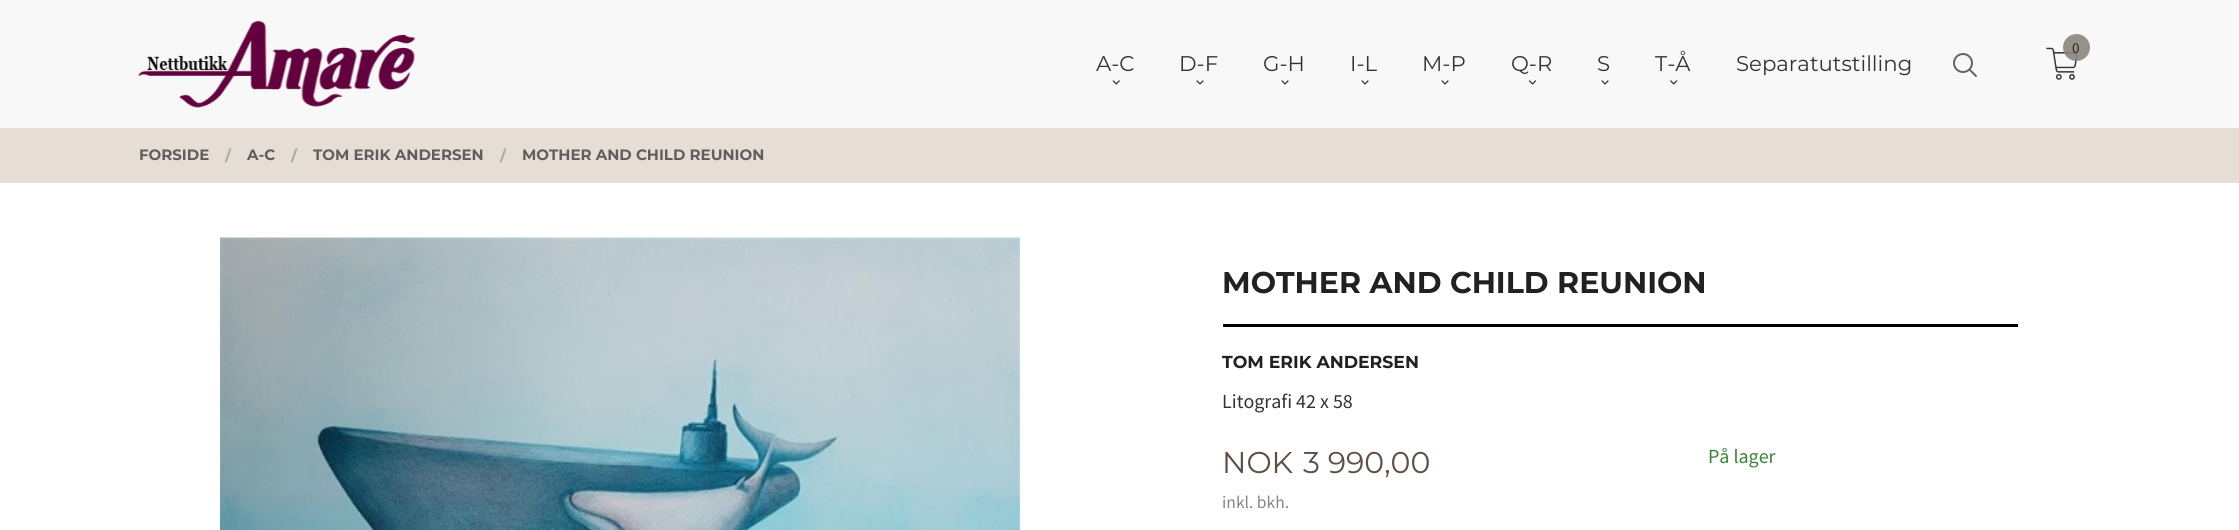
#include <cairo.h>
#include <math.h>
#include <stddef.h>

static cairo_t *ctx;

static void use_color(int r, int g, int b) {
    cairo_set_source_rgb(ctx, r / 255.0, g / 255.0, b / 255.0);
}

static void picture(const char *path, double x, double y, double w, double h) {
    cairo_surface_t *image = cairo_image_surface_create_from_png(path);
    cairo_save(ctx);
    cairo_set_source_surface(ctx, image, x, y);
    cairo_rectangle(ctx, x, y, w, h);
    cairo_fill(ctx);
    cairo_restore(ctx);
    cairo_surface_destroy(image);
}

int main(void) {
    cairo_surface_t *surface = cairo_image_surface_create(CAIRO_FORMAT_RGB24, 2239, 530);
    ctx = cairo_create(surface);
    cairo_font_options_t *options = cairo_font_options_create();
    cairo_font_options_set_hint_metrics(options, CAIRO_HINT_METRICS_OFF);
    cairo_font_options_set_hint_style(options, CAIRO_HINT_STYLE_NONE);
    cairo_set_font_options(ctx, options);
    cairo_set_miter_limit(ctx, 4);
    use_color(230, 221, 212);
    cairo_paint(ctx);
    use_color(248, 248, 248);
    cairo_rectangle(ctx, 0, 0, 2239, 128);
    cairo_fill(ctx);
    picture("img1.png", 2046, 47, 32, 33);
    cairo_set_source_rgba(ctx, 0.549, 0.529, 0.49, 0.9);
    cairo_arc(ctx, 2076.5, 47.5, 13.5, 0, 2 * M_PI);
    cairo_fill(ctx);
    cairo_select_font_face(ctx, "Source Sans Pro", CAIRO_FONT_SLANT_NORMAL, CAIRO_FONT_WEIGHT_NORMAL);
    cairo_set_font_size(ctx, 15);
    use_color(43, 42, 41);
    cairo_move_to(ctx, 2072, 53);
    cairo_show_text(ctx, "0");
    picture("img2.png", 138, 20, 277, 88);
    cairo_select_font_face(ctx, "Montserrat", CAIRO_FONT_SLANT_NORMAL, CAIRO_FONT_WEIGHT_NORMAL);
    cairo_set_font_size(ctx, 21.25);
    use_color(51, 51, 51);
    cairo_move_to(ctx, 1096, 71);
    cairo_show_text(ctx, "A-C");
    picture("img3.png", 1112, 80, 8, 5);
    cairo_move_to(ctx, 1179, 71);
    cairo_show_text(ctx, "D-F");
    picture("img4.png", 1196, 80, 8, 5);
    cairo_move_to(ctx, 1263, 71);
    cairo_show_text(ctx, "G-H");
    picture("img4.png", 1281, 80, 8, 5);
    cairo_move_to(ctx, 1350, 71);
    cairo_show_text(ctx, "I-L");
    picture("img4.png", 1361, 80, 8, 5);
    cairo_move_to(ctx, 1422, 71);
    cairo_show_text(ctx, "M-P");
    picture("img4.png", 1441, 80, 8, 5);
    cairo_move_to(ctx, 1511, 71);
    cairo_show_text(ctx, "Q-R");
    picture("img5.png", 1528, 80, 9, 5);
    cairo_move_to(ctx, 1597, 71);
    cairo_show_text(ctx, "S");
    picture("img4.png", 1601, 80, 8, 5);
    cairo_move_to(ctx, 1655, 71);
    cairo_show_text(ctx, "T-Å");
    picture("img6.png", 1670, 80, 8, 5);
    cairo_move_to(ctx, 1736, 71);
    cairo_show_text(ctx, "Separatutstilling");
    cairo_new_path(ctx);
    cairo_arc(ctx, 1963, 63, 9, 0, 2 * M_PI);
    use_color(100, 100, 100);
    cairo_stroke(ctx);
    cairo_new_path(ctx);
    cairo_move_to(ctx, 1976, 76);
    cairo_line_to(ctx, 1969.5, 69.5);
    cairo_set_line_cap(ctx, CAIRO_LINE_CAP_ROUND);
    cairo_stroke(ctx);
    cairo_select_font_face(ctx, "Montserrat", CAIRO_FONT_SLANT_NORMAL, CAIRO_FONT_WEIGHT_BOLD);
    cairo_set_font_size(ctx, 15);
    use_color(96, 94, 91);
    cairo_move_to(ctx, 139, 160);
    cairo_show_text(ctx, "FORSIDE");
    use_color(170, 170, 170);
    cairo_move_to(ctx, 225, 161);
    cairo_show_text(ctx, "/");
    use_color(96, 94, 91);
    cairo_move_to(ctx, 247, 160);
    cairo_show_text(ctx, "A-C");
    use_color(170, 170, 170);
    cairo_move_to(ctx, 291, 161);
    cairo_show_text(ctx, "/");
    use_color(96, 94, 91);
    cairo_move_to(ctx, 313, 160);
    cairo_show_text(ctx, "TOM ERIK ANDERSEN");
    use_color(170, 170, 170);
    cairo_move_to(ctx, 500, 161);
    cairo_show_text(ctx, "/");
    use_color(96, 94, 91);
    cairo_move_to(ctx, 522, 160);
    cairo_show_text(ctx, "MOTHER AND CHILD REUNION");
    use_color(255, 255, 255);
    cairo_rectangle(ctx, 0, 183, 2239, 347);
    cairo_fill(ctx);
    picture("img7.png", 220, 237, 800, 293);
    use_color(0, 0, 0);
    cairo_rectangle(ctx, 1223, 324, 795, 3);
    cairo_fill(ctx);
    cairo_set_font_size(ctx, 30);
    use_color(33, 33, 33);
    cairo_move_to(ctx, 1222, 293);
    cairo_show_text(ctx, "MOTHER AND CHILD REUNION");
    cairo_set_font_size(ctx, 17.3);
    cairo_move_to(ctx, 1222, 368);
    cairo_show_text(ctx, "TOM ERIK ANDERSEN");
    cairo_select_font_face(ctx, "Source Sans Pro", CAIRO_FONT_SLANT_NORMAL, CAIRO_FONT_WEIGHT_NORMAL);
    cairo_set_font_size(ctx, 20);
    use_color(51, 51, 51);
    cairo_move_to(ctx, 1222, 408);
    cairo_show_text(ctx, "Litografi 42 x 58");
    cairo_select_font_face(ctx, "Montserrat", CAIRO_FONT_SLANT_NORMAL, CAIRO_FONT_WEIGHT_NORMAL);
    cairo_set_font_size(ctx, 30);
    use_color(94, 79, 69);
    cairo_move_to(ctx, 1222, 473);
    cairo_show_text(ctx, "NOK");
    cairo_move_to(ctx, 1303, 473);
    cairo_show_text(ctx, "3 990,00");
    cairo_select_font_face(ctx, "Source Sans Pro", CAIRO_FONT_SLANT_NORMAL, CAIRO_FONT_WEIGHT_NORMAL);
    cairo_set_font_size(ctx, 17.5);
    use_color(133, 133, 133);
    cairo_move_to(ctx, 1222, 508);
    cairo_show_text(ctx, "inkl. bkh.");
    cairo_set_font_size(ctx, 20);
    use_color(57, 132, 57);
    cairo_move_to(ctx, 1708, 463);
    cairo_show_text(ctx, "På lager");
    cairo_surface_write_to_png(surface, "result.png");
    cairo_font_options_destroy(options);
    cairo_destroy(ctx);
    cairo_surface_destroy(surface);
    return 0;
}
